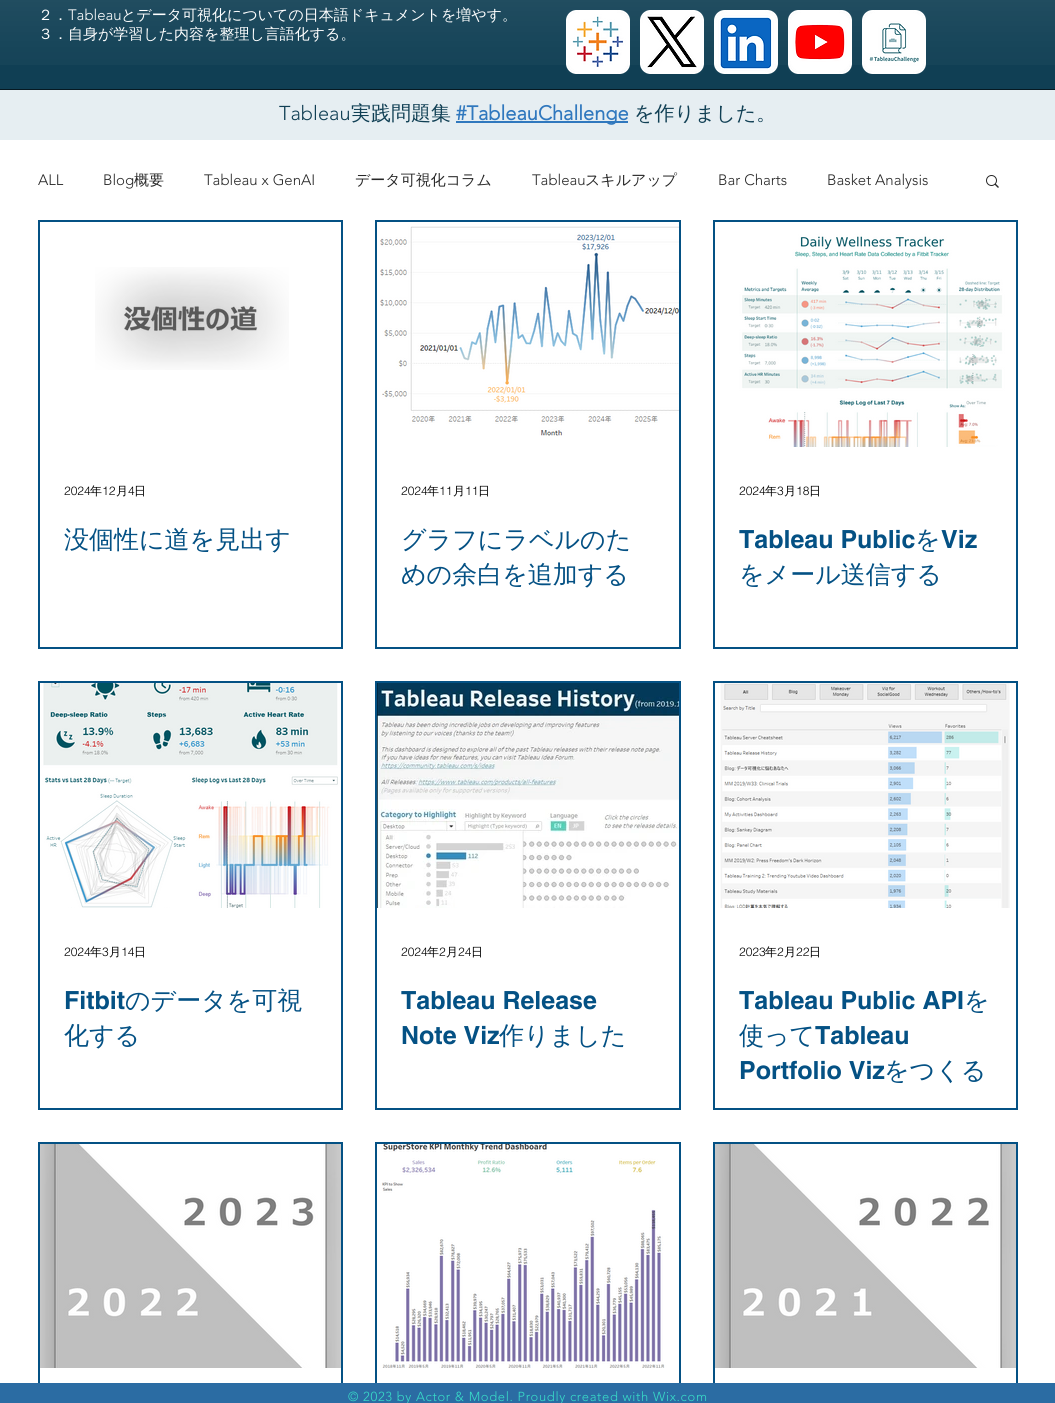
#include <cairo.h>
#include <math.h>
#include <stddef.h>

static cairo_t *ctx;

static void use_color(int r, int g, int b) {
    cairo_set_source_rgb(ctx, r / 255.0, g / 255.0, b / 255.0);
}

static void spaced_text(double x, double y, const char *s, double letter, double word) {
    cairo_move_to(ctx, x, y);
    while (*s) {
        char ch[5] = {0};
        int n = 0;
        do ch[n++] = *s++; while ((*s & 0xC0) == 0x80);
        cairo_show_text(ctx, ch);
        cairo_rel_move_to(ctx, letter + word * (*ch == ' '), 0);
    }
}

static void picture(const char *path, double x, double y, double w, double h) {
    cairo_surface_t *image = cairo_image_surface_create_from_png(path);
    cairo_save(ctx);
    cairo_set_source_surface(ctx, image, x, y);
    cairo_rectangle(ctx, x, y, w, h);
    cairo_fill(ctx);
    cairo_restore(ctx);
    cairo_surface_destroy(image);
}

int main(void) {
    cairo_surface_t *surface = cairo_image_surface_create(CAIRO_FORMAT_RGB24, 1055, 1403);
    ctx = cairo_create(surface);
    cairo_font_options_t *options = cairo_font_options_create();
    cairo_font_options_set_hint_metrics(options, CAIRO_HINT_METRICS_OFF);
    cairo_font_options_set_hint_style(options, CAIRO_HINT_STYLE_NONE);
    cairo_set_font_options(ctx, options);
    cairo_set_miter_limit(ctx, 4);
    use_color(255, 255, 255);
    cairo_paint(ctx);
    use_color(16, 63, 84);
    cairo_rectangle(ctx, 0, 0, 1055, 89);
    cairo_fill(ctx);
    picture("img1.png", 0, 0, 1055, 65);
    use_color(6, 25, 34);
    cairo_rectangle(ctx, 0, 89, 1055, 1);
    cairo_fill(ctx);
    cairo_select_font_face(ctx, "WenQuanYi Zen Hei Medium", CAIRO_FONT_SLANT_NORMAL, CAIRO_FONT_WEIGHT_NORMAL);
    cairo_set_font_size(ctx, 15);
    use_color(255, 255, 255);
    cairo_move_to(ctx, 38, 20);
    cairo_show_text(ctx, "２．");
    cairo_select_font_face(ctx, "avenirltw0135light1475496 Light", CAIRO_FONT_SLANT_NORMAL, CAIRO_FONT_WEIGHT_NORMAL);
    cairo_move_to(ctx, 68, 20);
    cairo_show_text(ctx, "Tableau");
    cairo_select_font_face(ctx, "WenQuanYi Zen Hei Medium", CAIRO_FONT_SLANT_NORMAL, CAIRO_FONT_WEIGHT_NORMAL);
    cairo_move_to(ctx, 121, 20);
    cairo_show_text(ctx, "とデータ可視化についての日本語ドキュメントを増やす。");
    cairo_move_to(ctx, 38, 39);
    cairo_show_text(ctx, "３．自身が学習した内容を整理し言語化する。");
    picture("img2.png", 566, 10, 64, 64);
    picture("img3.png", 640, 10, 64, 64);
    picture("img4.png", 714, 10, 64, 64);
    picture("img5.png", 788, 10, 64, 64);
    picture("img6.png", 862, 10, 64, 64);
    use_color(230, 238, 242);
    cairo_rectangle(ctx, 0, 90, 1055, 50);
    cairo_fill(ctx);
    cairo_select_font_face(ctx, "avenirltw0135light1475496 Light", CAIRO_FONT_SLANT_NORMAL, CAIRO_FONT_WEIGHT_NORMAL);
    cairo_set_font_size(ctx, 20);
    use_color(16, 63, 84);
    cairo_move_to(ctx, 279, 120);
    cairo_show_text(ctx, "Tableau");
    cairo_select_font_face(ctx, "WenQuanYi Zen Hei Medium", CAIRO_FONT_SLANT_NORMAL, CAIRO_FONT_WEIGHT_NORMAL);
    cairo_move_to(ctx, 351, 120);
    cairo_show_text(ctx, "実践問題集");
    use_color(48, 120, 190);
    cairo_rectangle(ctx, 456, 121, 172, 2);
    cairo_fill(ctx);
    cairo_select_font_face(ctx, "avenirltw0135light1475496", CAIRO_FONT_SLANT_NORMAL, CAIRO_FONT_WEIGHT_BOLD);
    cairo_move_to(ctx, 456, 120);
    cairo_show_text(ctx, "#TableauChallenge");
    cairo_select_font_face(ctx, "WenQuanYi Zen Hei Medium", CAIRO_FONT_SLANT_NORMAL, CAIRO_FONT_WEIGHT_NORMAL);
    use_color(16, 63, 84);
    cairo_move_to(ctx, 634, 120);
    cairo_show_text(ctx, "を作りました。");
    cairo_select_font_face(ctx, "avenirltw0135light1475496 Light", CAIRO_FONT_SLANT_NORMAL, CAIRO_FONT_WEIGHT_NORMAL);
    cairo_set_font_size(ctx, 15);
    use_color(40, 40, 40);
    cairo_move_to(ctx, 38, 185);
    cairo_show_text(ctx, "ALL");
    cairo_move_to(ctx, 103, 185);
    cairo_show_text(ctx, "Blog");
    cairo_select_font_face(ctx, "WenQuanYi Zen Hei Medium", CAIRO_FONT_SLANT_NORMAL, CAIRO_FONT_WEIGHT_NORMAL);
    cairo_move_to(ctx, 134, 185);
    cairo_show_text(ctx, "概要");
    cairo_select_font_face(ctx, "avenirltw0135light1475496 Light", CAIRO_FONT_SLANT_NORMAL, CAIRO_FONT_WEIGHT_NORMAL);
    cairo_move_to(ctx, 204, 185);
    cairo_show_text(ctx, "Tableau x GenAI");
    cairo_select_font_face(ctx, "WenQuanYi Zen Hei Medium", CAIRO_FONT_SLANT_NORMAL, CAIRO_FONT_WEIGHT_NORMAL);
    cairo_move_to(ctx, 355, 185);
    cairo_show_text(ctx, "データ可視化コラム");
    cairo_select_font_face(ctx, "avenirltw0135light1475496 Light", CAIRO_FONT_SLANT_NORMAL, CAIRO_FONT_WEIGHT_NORMAL);
    cairo_move_to(ctx, 532, 185);
    cairo_show_text(ctx, "Tableau");
    cairo_select_font_face(ctx, "WenQuanYi Zen Hei Medium", CAIRO_FONT_SLANT_NORMAL, CAIRO_FONT_WEIGHT_NORMAL);
    cairo_move_to(ctx, 585, 185);
    cairo_show_text(ctx, "スキルアップ");
    cairo_select_font_face(ctx, "avenirltw0135light1475496 Light", CAIRO_FONT_SLANT_NORMAL, CAIRO_FONT_WEIGHT_NORMAL);
    cairo_move_to(ctx, 718, 185);
    cairo_show_text(ctx, "Bar Charts");
    cairo_move_to(ctx, 827, 185);
    cairo_show_text(ctx, "Basket Analysis");
    picture("img7.png", 986, 175, 13, 13);
    cairo_rectangle(ctx, 39, 221, 303, 427);
    use_color(4, 81, 132);
    cairo_stroke(ctx);
    picture("img8.png", 95, 267, 194, 103);
    picture("img9.png", 124, 306, 134, 25);
    cairo_select_font_face(ctx, "helvetica Light", CAIRO_FONT_SLANT_NORMAL, CAIRO_FONT_WEIGHT_NORMAL);
    cairo_set_font_size(ctx, 12);
    use_color(0, 0, 0);
    cairo_move_to(ctx, 64, 495);
    cairo_show_text(ctx, "2024");
    cairo_select_font_face(ctx, "WenQuanYi Zen Hei Medium", CAIRO_FONT_SLANT_NORMAL, CAIRO_FONT_WEIGHT_NORMAL);
    cairo_move_to(ctx, 90, 495);
    cairo_show_text(ctx, "年");
    cairo_select_font_face(ctx, "helvetica Light", CAIRO_FONT_SLANT_NORMAL, CAIRO_FONT_WEIGHT_NORMAL);
    cairo_move_to(ctx, 102, 495);
    cairo_show_text(ctx, "12");
    cairo_select_font_face(ctx, "WenQuanYi Zen Hei Medium", CAIRO_FONT_SLANT_NORMAL, CAIRO_FONT_WEIGHT_NORMAL);
    cairo_move_to(ctx, 116, 495);
    cairo_show_text(ctx, "月");
    cairo_select_font_face(ctx, "helvetica Light", CAIRO_FONT_SLANT_NORMAL, CAIRO_FONT_WEIGHT_NORMAL);
    cairo_move_to(ctx, 128, 495);
    cairo_show_text(ctx, "4");
    cairo_select_font_face(ctx, "WenQuanYi Zen Hei Medium", CAIRO_FONT_SLANT_NORMAL, CAIRO_FONT_WEIGHT_NORMAL);
    cairo_move_to(ctx, 134, 495);
    cairo_show_text(ctx, "日");
    cairo_set_font_size(ctx, 25);
    use_color(4, 81, 132);
    cairo_move_to(ctx, 64, 548);
    cairo_show_text(ctx, "没個性に道を見出す");
    cairo_rectangle(ctx, 376, 221, 304, 427);
    cairo_stroke(ctx);
    picture("img10.png", 380, 222, 299, 214);
    cairo_select_font_face(ctx, "helvetica Light", CAIRO_FONT_SLANT_NORMAL, CAIRO_FONT_WEIGHT_NORMAL);
    cairo_set_font_size(ctx, 12);
    use_color(0, 0, 0);
    cairo_move_to(ctx, 401, 495);
    cairo_show_text(ctx, "2024");
    cairo_select_font_face(ctx, "WenQuanYi Zen Hei Medium", CAIRO_FONT_SLANT_NORMAL, CAIRO_FONT_WEIGHT_NORMAL);
    cairo_move_to(ctx, 427, 495);
    cairo_show_text(ctx, "年");
    cairo_select_font_face(ctx, "helvetica Light", CAIRO_FONT_SLANT_NORMAL, CAIRO_FONT_WEIGHT_NORMAL);
    cairo_move_to(ctx, 439, 495);
    cairo_show_text(ctx, "11");
    cairo_select_font_face(ctx, "WenQuanYi Zen Hei Medium", CAIRO_FONT_SLANT_NORMAL, CAIRO_FONT_WEIGHT_NORMAL);
    cairo_move_to(ctx, 453, 495);
    cairo_show_text(ctx, "月");
    cairo_select_font_face(ctx, "helvetica Light", CAIRO_FONT_SLANT_NORMAL, CAIRO_FONT_WEIGHT_NORMAL);
    cairo_move_to(ctx, 465, 495);
    cairo_show_text(ctx, "11");
    cairo_select_font_face(ctx, "WenQuanYi Zen Hei Medium", CAIRO_FONT_SLANT_NORMAL, CAIRO_FONT_WEIGHT_NORMAL);
    cairo_move_to(ctx, 478, 495);
    cairo_show_text(ctx, "日");
    cairo_set_font_size(ctx, 25);
    use_color(4, 81, 132);
    cairo_move_to(ctx, 401, 548);
    cairo_show_text(ctx, "グラフにラベルのた");
    cairo_move_to(ctx, 401, 583);
    cairo_show_text(ctx, "めの余白を追加する");
    cairo_rectangle(ctx, 714, 221, 303, 427);
    cairo_stroke(ctx);
    picture("img11.png", 723, 222, 293, 225);
    cairo_select_font_face(ctx, "helvetica Light", CAIRO_FONT_SLANT_NORMAL, CAIRO_FONT_WEIGHT_NORMAL);
    cairo_set_font_size(ctx, 12);
    use_color(0, 0, 0);
    cairo_move_to(ctx, 739, 495);
    cairo_show_text(ctx, "2024");
    cairo_select_font_face(ctx, "WenQuanYi Zen Hei Medium", CAIRO_FONT_SLANT_NORMAL, CAIRO_FONT_WEIGHT_NORMAL);
    cairo_move_to(ctx, 765, 495);
    cairo_show_text(ctx, "年");
    cairo_select_font_face(ctx, "helvetica Light", CAIRO_FONT_SLANT_NORMAL, CAIRO_FONT_WEIGHT_NORMAL);
    cairo_move_to(ctx, 777, 495);
    cairo_show_text(ctx, "3");
    cairo_select_font_face(ctx, "WenQuanYi Zen Hei Medium", CAIRO_FONT_SLANT_NORMAL, CAIRO_FONT_WEIGHT_NORMAL);
    cairo_move_to(ctx, 784, 495);
    cairo_show_text(ctx, "月");
    cairo_select_font_face(ctx, "helvetica Light", CAIRO_FONT_SLANT_NORMAL, CAIRO_FONT_WEIGHT_NORMAL);
    cairo_move_to(ctx, 796, 495);
    cairo_show_text(ctx, "18");
    cairo_select_font_face(ctx, "WenQuanYi Zen Hei Medium", CAIRO_FONT_SLANT_NORMAL, CAIRO_FONT_WEIGHT_NORMAL);
    cairo_move_to(ctx, 809, 495);
    cairo_show_text(ctx, "日");
    cairo_save(ctx);
    cairo_rectangle(ctx, 739, 522, 253, 70);
    cairo_clip(ctx);
    cairo_select_font_face(ctx, "helvetica", CAIRO_FONT_SLANT_NORMAL, CAIRO_FONT_WEIGHT_BOLD);
    cairo_set_font_size(ctx, 25);
    use_color(4, 81, 132);
    cairo_move_to(ctx, 739, 548);
    cairo_show_text(ctx, "Tableau Public");
    cairo_restore(ctx);
    cairo_set_font_size(ctx, 25);
    use_color(4, 81, 132);
    cairo_move_to(ctx, 915, 548);
    cairo_show_text(ctx, "を");
    cairo_select_font_face(ctx, "helvetica", CAIRO_FONT_SLANT_NORMAL, CAIRO_FONT_WEIGHT_BOLD);
    cairo_move_to(ctx, 941, 548);
    cairo_show_text(ctx, "Viz");
    cairo_select_font_face(ctx, "WenQuanYi Zen Hei Medium", CAIRO_FONT_SLANT_NORMAL, CAIRO_FONT_WEIGHT_NORMAL);
    cairo_move_to(ctx, 739, 583);
    cairo_show_text(ctx, "をメール送信する");
    cairo_rectangle(ctx, 39, 682, 303, 427);
    cairo_stroke(ctx);
    picture("img12.png", 40, 683, 301, 225);
    cairo_select_font_face(ctx, "helvetica Light", CAIRO_FONT_SLANT_NORMAL, CAIRO_FONT_WEIGHT_NORMAL);
    cairo_set_font_size(ctx, 12);
    use_color(0, 0, 0);
    cairo_move_to(ctx, 64, 956);
    cairo_show_text(ctx, "2024");
    cairo_select_font_face(ctx, "WenQuanYi Zen Hei Medium", CAIRO_FONT_SLANT_NORMAL, CAIRO_FONT_WEIGHT_NORMAL);
    cairo_move_to(ctx, 90, 956);
    cairo_show_text(ctx, "年");
    cairo_select_font_face(ctx, "helvetica Light", CAIRO_FONT_SLANT_NORMAL, CAIRO_FONT_WEIGHT_NORMAL);
    cairo_move_to(ctx, 102, 956);
    cairo_show_text(ctx, "3");
    cairo_select_font_face(ctx, "WenQuanYi Zen Hei Medium", CAIRO_FONT_SLANT_NORMAL, CAIRO_FONT_WEIGHT_NORMAL);
    cairo_move_to(ctx, 109, 956);
    cairo_show_text(ctx, "月");
    cairo_select_font_face(ctx, "helvetica Light", CAIRO_FONT_SLANT_NORMAL, CAIRO_FONT_WEIGHT_NORMAL);
    cairo_move_to(ctx, 121, 956);
    cairo_show_text(ctx, "14");
    cairo_select_font_face(ctx, "WenQuanYi Zen Hei Medium", CAIRO_FONT_SLANT_NORMAL, CAIRO_FONT_WEIGHT_NORMAL);
    cairo_move_to(ctx, 134, 956);
    cairo_show_text(ctx, "日");
    cairo_select_font_face(ctx, "helvetica", CAIRO_FONT_SLANT_NORMAL, CAIRO_FONT_WEIGHT_BOLD);
    cairo_set_font_size(ctx, 25);
    use_color(4, 81, 132);
    cairo_move_to(ctx, 64, 1009);
    cairo_show_text(ctx, "Fitbit");
    cairo_select_font_face(ctx, "WenQuanYi Zen Hei Medium", CAIRO_FONT_SLANT_NORMAL, CAIRO_FONT_WEIGHT_NORMAL);
    cairo_move_to(ctx, 125, 1009);
    cairo_show_text(ctx, "のデータを可視");
    cairo_move_to(ctx, 64, 1044);
    cairo_show_text(ctx, "化する");
    cairo_rectangle(ctx, 376, 682, 304, 427);
    cairo_stroke(ctx);
    picture("img13.png", 377, 683, 302, 225);
    cairo_select_font_face(ctx, "helvetica Light", CAIRO_FONT_SLANT_NORMAL, CAIRO_FONT_WEIGHT_NORMAL);
    cairo_set_font_size(ctx, 12);
    use_color(0, 0, 0);
    cairo_move_to(ctx, 401, 956);
    cairo_show_text(ctx, "2024");
    cairo_select_font_face(ctx, "WenQuanYi Zen Hei Medium", CAIRO_FONT_SLANT_NORMAL, CAIRO_FONT_WEIGHT_NORMAL);
    cairo_move_to(ctx, 427, 956);
    cairo_show_text(ctx, "年");
    cairo_select_font_face(ctx, "helvetica Light", CAIRO_FONT_SLANT_NORMAL, CAIRO_FONT_WEIGHT_NORMAL);
    cairo_move_to(ctx, 439, 956);
    cairo_show_text(ctx, "2");
    cairo_select_font_face(ctx, "WenQuanYi Zen Hei Medium", CAIRO_FONT_SLANT_NORMAL, CAIRO_FONT_WEIGHT_NORMAL);
    cairo_move_to(ctx, 446, 956);
    cairo_show_text(ctx, "月");
    cairo_select_font_face(ctx, "helvetica Light", CAIRO_FONT_SLANT_NORMAL, CAIRO_FONT_WEIGHT_NORMAL);
    cairo_move_to(ctx, 458, 956);
    cairo_show_text(ctx, "24");
    cairo_select_font_face(ctx, "WenQuanYi Zen Hei Medium", CAIRO_FONT_SLANT_NORMAL, CAIRO_FONT_WEIGHT_NORMAL);
    cairo_move_to(ctx, 471, 956);
    cairo_show_text(ctx, "日");
    cairo_save(ctx);
    cairo_rectangle(ctx, 401, 983, 254, 70);
    cairo_clip(ctx);
    cairo_select_font_face(ctx, "helvetica", CAIRO_FONT_SLANT_NORMAL, CAIRO_FONT_WEIGHT_BOLD);
    cairo_set_font_size(ctx, 25);
    use_color(4, 81, 132);
    cairo_move_to(ctx, 401, 1009);
    cairo_show_text(ctx, "Tableau Release");
    cairo_restore(ctx);
    cairo_select_font_face(ctx, "helvetica", CAIRO_FONT_SLANT_NORMAL, CAIRO_FONT_WEIGHT_BOLD);
    cairo_set_font_size(ctx, 25);
    use_color(4, 81, 132);
    cairo_move_to(ctx, 401, 1044);
    cairo_show_text(ctx, "Note Viz");
    cairo_select_font_face(ctx, "WenQuanYi Zen Hei Medium", CAIRO_FONT_SLANT_NORMAL, CAIRO_FONT_WEIGHT_NORMAL);
    cairo_move_to(ctx, 499, 1044);
    cairo_show_text(ctx, "作りました");
    cairo_rectangle(ctx, 714, 682, 303, 427);
    cairo_stroke(ctx);
    picture("img14.png", 715, 683, 301, 225);
    cairo_select_font_face(ctx, "helvetica Light", CAIRO_FONT_SLANT_NORMAL, CAIRO_FONT_WEIGHT_NORMAL);
    cairo_set_font_size(ctx, 12);
    use_color(0, 0, 0);
    cairo_move_to(ctx, 739, 956);
    cairo_show_text(ctx, "2023");
    cairo_select_font_face(ctx, "WenQuanYi Zen Hei Medium", CAIRO_FONT_SLANT_NORMAL, CAIRO_FONT_WEIGHT_NORMAL);
    cairo_move_to(ctx, 765, 956);
    cairo_show_text(ctx, "年");
    cairo_select_font_face(ctx, "helvetica Light", CAIRO_FONT_SLANT_NORMAL, CAIRO_FONT_WEIGHT_NORMAL);
    cairo_move_to(ctx, 777, 956);
    cairo_show_text(ctx, "2");
    cairo_select_font_face(ctx, "WenQuanYi Zen Hei Medium", CAIRO_FONT_SLANT_NORMAL, CAIRO_FONT_WEIGHT_NORMAL);
    cairo_move_to(ctx, 784, 956);
    cairo_show_text(ctx, "月");
    cairo_select_font_face(ctx, "helvetica Light", CAIRO_FONT_SLANT_NORMAL, CAIRO_FONT_WEIGHT_NORMAL);
    cairo_move_to(ctx, 796, 956);
    cairo_show_text(ctx, "22");
    cairo_select_font_face(ctx, "WenQuanYi Zen Hei Medium", CAIRO_FONT_SLANT_NORMAL, CAIRO_FONT_WEIGHT_NORMAL);
    cairo_move_to(ctx, 809, 956);
    cairo_show_text(ctx, "日");
    cairo_save(ctx);
    cairo_rectangle(ctx, 739, 983, 253, 103);
    cairo_clip(ctx);
    cairo_select_font_face(ctx, "helvetica", CAIRO_FONT_SLANT_NORMAL, CAIRO_FONT_WEIGHT_BOLD);
    cairo_set_font_size(ctx, 25);
    use_color(4, 81, 132);
    cairo_move_to(ctx, 739, 1009);
    cairo_show_text(ctx, "Tableau Public API");
    cairo_restore(ctx);
    cairo_set_font_size(ctx, 25);
    use_color(4, 81, 132);
    cairo_move_to(ctx, 964, 1009);
    cairo_show_text(ctx, "を");
    cairo_move_to(ctx, 739, 1044);
    cairo_show_text(ctx, "使って");
    cairo_select_font_face(ctx, "helvetica", CAIRO_FONT_SLANT_NORMAL, CAIRO_FONT_WEIGHT_BOLD);
    cairo_move_to(ctx, 815, 1044);
    cairo_show_text(ctx, "Tableau");
    cairo_move_to(ctx, 739, 1079);
    cairo_show_text(ctx, "Portfolio Viz");
    cairo_select_font_face(ctx, "WenQuanYi Zen Hei Medium", CAIRO_FONT_SLANT_NORMAL, CAIRO_FONT_WEIGHT_NORMAL);
    cairo_move_to(ctx, 884, 1079);
    cairo_show_text(ctx, "をつくる");
    cairo_rectangle(ctx, 39, 1143, 303, 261);
    cairo_stroke(ctx);
    picture("img15.png", 40, 1144, 301, 224);
    picture("img16.png", 54, 1144, 273, 224);
    cairo_rectangle(ctx, 376, 1143, 304, 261);
    cairo_stroke(ctx);
    picture("img17.png", 377, 1144, 302, 224);
    cairo_rectangle(ctx, 714, 1143, 303, 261);
    cairo_stroke(ctx);
    picture("img18.png", 715, 1144, 301, 224);
    picture("img19.png", 729, 1144, 273, 224);
    use_color(43, 108, 163);
    cairo_rectangle(ctx, 0, 1383, 1055, 20);
    cairo_fill(ctx);
    cairo_select_font_face(ctx, "avenirltw0135light1475496 Light", CAIRO_FONT_SLANT_NORMAL, CAIRO_FONT_WEIGHT_NORMAL);
    cairo_set_font_size(ctx, 13);
    use_color(56, 220, 200);
    spaced_text(348, 1401, "© 2023 by Actor & Model. Proudly created with Wix.com", 0.65, 0);
    cairo_surface_write_to_png(surface, "result.png");
    cairo_font_options_destroy(options);
    cairo_destroy(ctx);
    cairo_surface_destroy(surface);
    return 0;
}
